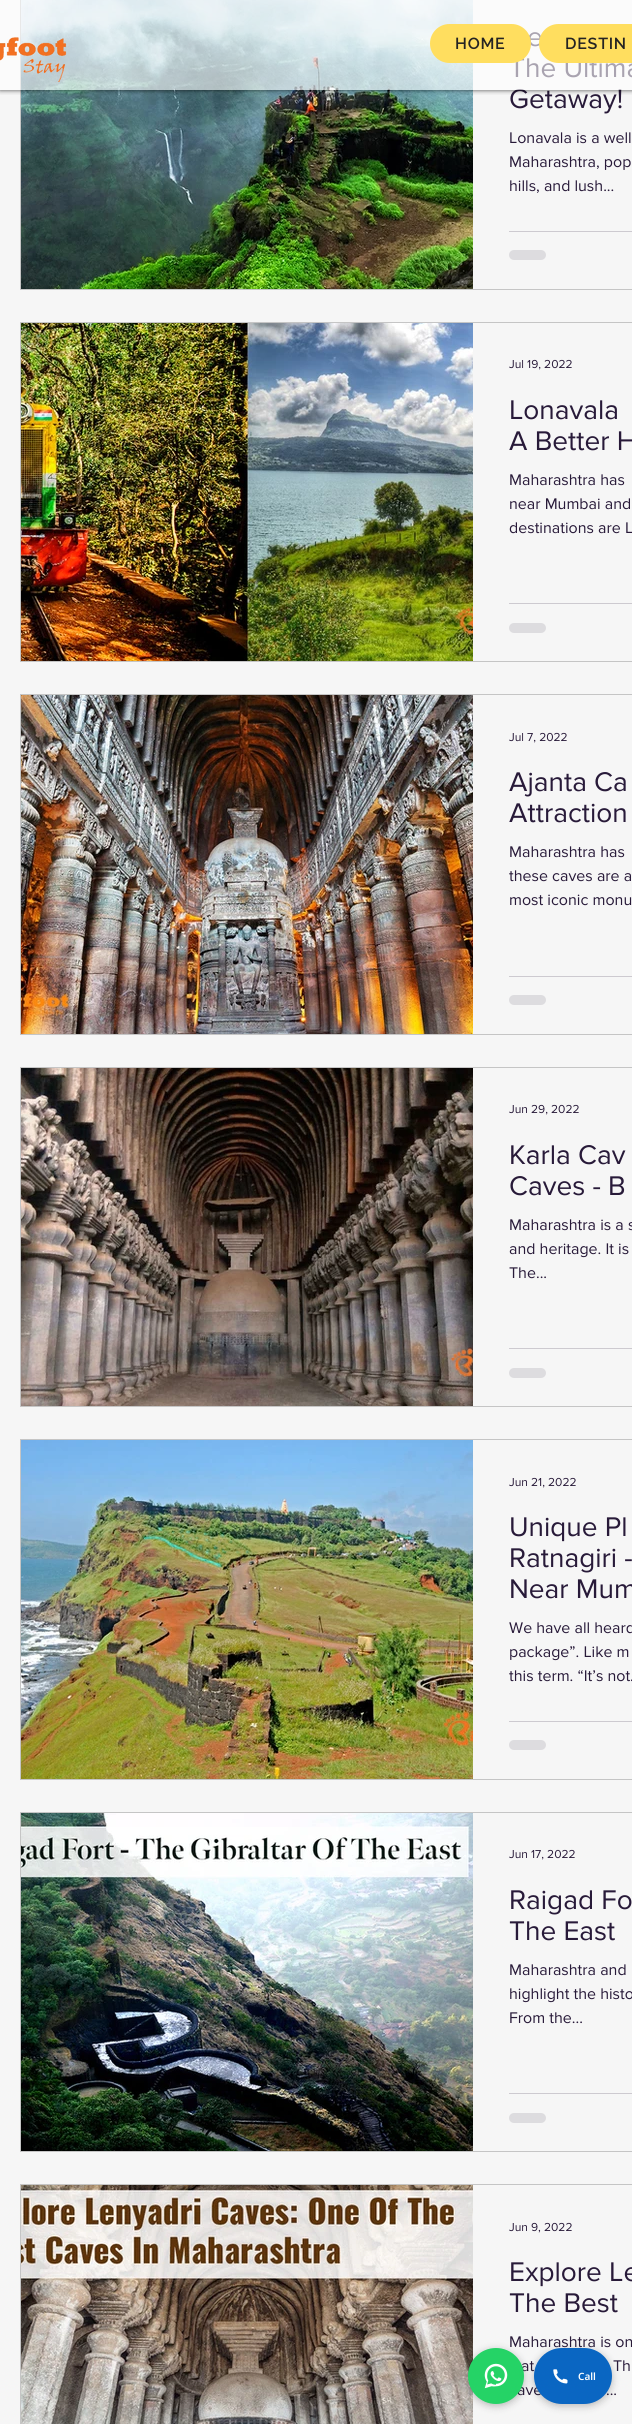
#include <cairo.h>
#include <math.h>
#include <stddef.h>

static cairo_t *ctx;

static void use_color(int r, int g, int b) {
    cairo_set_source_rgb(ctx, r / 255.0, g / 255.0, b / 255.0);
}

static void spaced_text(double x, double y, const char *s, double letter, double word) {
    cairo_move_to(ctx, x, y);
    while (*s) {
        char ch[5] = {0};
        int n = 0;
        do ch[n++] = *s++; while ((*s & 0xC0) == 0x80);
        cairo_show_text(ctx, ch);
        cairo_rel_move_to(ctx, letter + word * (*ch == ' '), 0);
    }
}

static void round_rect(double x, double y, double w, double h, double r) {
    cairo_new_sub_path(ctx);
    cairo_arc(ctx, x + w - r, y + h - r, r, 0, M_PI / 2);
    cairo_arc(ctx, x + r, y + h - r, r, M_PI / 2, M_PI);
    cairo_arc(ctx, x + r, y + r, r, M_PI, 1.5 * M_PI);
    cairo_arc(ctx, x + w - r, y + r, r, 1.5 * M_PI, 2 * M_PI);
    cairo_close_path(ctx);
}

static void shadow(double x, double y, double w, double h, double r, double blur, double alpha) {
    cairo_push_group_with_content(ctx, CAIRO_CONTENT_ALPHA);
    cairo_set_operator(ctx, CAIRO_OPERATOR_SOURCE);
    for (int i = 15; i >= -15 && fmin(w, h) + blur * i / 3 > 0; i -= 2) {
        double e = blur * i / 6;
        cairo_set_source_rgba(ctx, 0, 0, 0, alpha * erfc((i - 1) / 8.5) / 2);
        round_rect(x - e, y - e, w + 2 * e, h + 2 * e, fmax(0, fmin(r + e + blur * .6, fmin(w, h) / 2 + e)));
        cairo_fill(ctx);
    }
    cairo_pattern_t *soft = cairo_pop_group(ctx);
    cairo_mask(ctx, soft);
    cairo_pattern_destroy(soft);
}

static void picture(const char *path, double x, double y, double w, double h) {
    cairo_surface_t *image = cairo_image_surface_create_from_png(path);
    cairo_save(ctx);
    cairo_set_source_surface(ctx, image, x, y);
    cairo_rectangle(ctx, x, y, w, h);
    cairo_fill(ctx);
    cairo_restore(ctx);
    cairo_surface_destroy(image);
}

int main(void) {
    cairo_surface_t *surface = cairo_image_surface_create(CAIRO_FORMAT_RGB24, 632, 2424);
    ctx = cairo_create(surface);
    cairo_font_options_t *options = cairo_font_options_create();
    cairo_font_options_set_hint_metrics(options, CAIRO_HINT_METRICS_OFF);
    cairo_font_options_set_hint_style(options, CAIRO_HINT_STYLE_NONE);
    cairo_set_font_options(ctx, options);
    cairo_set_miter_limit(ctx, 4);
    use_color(246, 246, 246);
    cairo_paint(ctx);
    cairo_rectangle(ctx, 20.5, -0.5, 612, 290);
    use_color(197, 197, 197);
    cairo_set_line_width(ctx, 1);
    cairo_stroke(ctx);
    picture("img1.png", 21, 0, 452, 289);
    cairo_select_font_face(ctx, "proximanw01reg", CAIRO_FONT_SLANT_NORMAL, CAIRO_FONT_WEIGHT_NORMAL);
    cairo_set_font_size(ctx, 28);
    use_color(40, 26, 57);
    cairo_move_to(ctx, 527, 46);
    cairo_show_text(ctx, "e");
    cairo_move_to(ctx, 509, 77);
    cairo_show_text(ctx, "The Ultima");
    cairo_move_to(ctx, 509, 108);
    cairo_show_text(ctx, "Getaway!");
    cairo_set_font_size(ctx, 16);
    cairo_move_to(ctx, 509, 143);
    cairo_show_text(ctx, "Lonavala is a well");
    cairo_move_to(ctx, 509, 167);
    cairo_show_text(ctx, "Maharashtra, pop");
    cairo_move_to(ctx, 509, 191);
    cairo_show_text(ctx, "hills, and lush...");
    use_color(205, 202, 208);
    cairo_rectangle(ctx, 509, 231, 123, 1);
    cairo_fill(ctx);
    use_color(221, 220, 223);
    round_rect(509, 250, 37, 10, 5);
    cairo_fill(ctx);
    cairo_rectangle(ctx, 20.5, 322.5, 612, 339);
    use_color(197, 197, 197);
    cairo_stroke(ctx);
    picture("img2.png", 21, 323, 452, 338);
    cairo_set_font_size(ctx, 12);
    use_color(40, 26, 57);
    cairo_move_to(ctx, 509, 368);
    cairo_show_text(ctx, "Jul 19, 2022");
    cairo_set_font_size(ctx, 28);
    cairo_move_to(ctx, 509, 419);
    cairo_show_text(ctx, "Lonavala");
    cairo_move_to(ctx, 509, 450);
    cairo_show_text(ctx, "A Better H");
    cairo_set_font_size(ctx, 16);
    cairo_move_to(ctx, 509, 485);
    cairo_show_text(ctx, "Maharashtra has");
    cairo_move_to(ctx, 509, 509);
    cairo_show_text(ctx, "near Mumbai and");
    cairo_move_to(ctx, 509, 533);
    cairo_show_text(ctx, "destinations are L");
    use_color(205, 202, 208);
    cairo_rectangle(ctx, 509, 603, 123, 1);
    cairo_fill(ctx);
    use_color(221, 220, 223);
    round_rect(509, 623, 37, 10, 5);
    cairo_fill(ctx);
    cairo_rectangle(ctx, 20.5, 694.5, 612, 340);
    use_color(197, 197, 197);
    cairo_stroke(ctx);
    picture("img3.png", 21, 695, 452, 339);
    cairo_set_font_size(ctx, 12);
    use_color(40, 26, 57);
    cairo_move_to(ctx, 509, 741);
    cairo_show_text(ctx, "Jul 7, 2022");
    cairo_set_font_size(ctx, 28);
    cairo_move_to(ctx, 509, 791);
    cairo_show_text(ctx, "Ajanta Ca");
    cairo_move_to(ctx, 509, 822);
    cairo_show_text(ctx, "Attraction");
    cairo_set_font_size(ctx, 16);
    cairo_move_to(ctx, 509, 857);
    cairo_show_text(ctx, "Maharashtra has");
    cairo_move_to(ctx, 509, 881);
    cairo_show_text(ctx, "these caves are a");
    cairo_move_to(ctx, 509, 905);
    cairo_show_text(ctx, "most iconic monu");
    use_color(205, 202, 208);
    cairo_rectangle(ctx, 509, 976, 123, 1);
    cairo_fill(ctx);
    use_color(221, 220, 223);
    round_rect(509, 995, 37, 10, 5);
    cairo_fill(ctx);
    cairo_rectangle(ctx, 20.5, 1067.5, 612, 339);
    use_color(197, 197, 197);
    cairo_stroke(ctx);
    picture("img4.png", 21, 1068, 452, 338);
    cairo_set_font_size(ctx, 12);
    use_color(40, 26, 57);
    cairo_move_to(ctx, 509, 1113);
    cairo_show_text(ctx, "Jun 29, 2022");
    cairo_set_font_size(ctx, 28);
    cairo_move_to(ctx, 509, 1164);
    cairo_show_text(ctx, "Karla Cav");
    cairo_move_to(ctx, 509, 1195);
    cairo_show_text(ctx, "Caves - B");
    cairo_set_font_size(ctx, 16);
    cairo_move_to(ctx, 509, 1230);
    cairo_show_text(ctx, "Maharashtra is a s");
    cairo_move_to(ctx, 509, 1254);
    cairo_show_text(ctx, "and heritage. It is");
    cairo_move_to(ctx, 509, 1278);
    cairo_show_text(ctx, "The...");
    use_color(205, 202, 208);
    cairo_rectangle(ctx, 509, 1348, 123, 1);
    cairo_fill(ctx);
    use_color(221, 220, 223);
    round_rect(509, 1368, 37, 10, 5);
    cairo_fill(ctx);
    cairo_rectangle(ctx, 20.5, 1439.5, 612, 340);
    use_color(197, 197, 197);
    cairo_stroke(ctx);
    picture("img5.png", 21, 1440, 452, 339);
    cairo_set_font_size(ctx, 12);
    use_color(40, 26, 57);
    cairo_move_to(ctx, 509, 1486);
    cairo_show_text(ctx, "Jun 21, 2022");
    cairo_set_font_size(ctx, 28);
    cairo_move_to(ctx, 509, 1536);
    cairo_show_text(ctx, "Unique Pl");
    cairo_move_to(ctx, 509, 1567);
    cairo_show_text(ctx, "Ratnagiri -");
    cairo_move_to(ctx, 509, 1598);
    cairo_show_text(ctx, "Near Mum");
    cairo_set_font_size(ctx, 16);
    cairo_move_to(ctx, 509, 1633);
    cairo_show_text(ctx, "We have all heard");
    cairo_move_to(ctx, 509, 1657);
    cairo_show_text(ctx, "package”. Like m");
    cairo_move_to(ctx, 509, 1681);
    cairo_show_text(ctx, "this term. “It’s not.");
    use_color(205, 202, 208);
    cairo_rectangle(ctx, 509, 1721, 123, 1);
    cairo_fill(ctx);
    use_color(221, 220, 223);
    round_rect(509, 1740, 37, 10, 5);
    cairo_fill(ctx);
    cairo_rectangle(ctx, 20.5, 1812.5, 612, 339);
    use_color(197, 197, 197);
    cairo_stroke(ctx);
    picture("img6.png", 21, 1813, 452, 338);
    cairo_set_font_size(ctx, 12);
    use_color(40, 26, 57);
    cairo_move_to(ctx, 509, 1858);
    cairo_show_text(ctx, "Jun 17, 2022");
    cairo_set_font_size(ctx, 28);
    cairo_move_to(ctx, 509, 1909);
    cairo_show_text(ctx, "Raigad Fo");
    cairo_move_to(ctx, 509, 1940);
    cairo_show_text(ctx, "The East");
    cairo_set_font_size(ctx, 16);
    cairo_move_to(ctx, 509, 1975);
    cairo_show_text(ctx, "Maharashtra and");
    cairo_move_to(ctx, 509, 1999);
    cairo_show_text(ctx, "highlight the histo");
    cairo_move_to(ctx, 509, 2023);
    cairo_show_text(ctx, "From the...");
    use_color(205, 202, 208);
    cairo_rectangle(ctx, 509, 2093, 123, 1);
    cairo_fill(ctx);
    use_color(221, 220, 223);
    round_rect(509, 2113, 37, 10, 5);
    cairo_fill(ctx);
    cairo_rectangle(ctx, 20.5, 2184.5, 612, 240);
    use_color(197, 197, 197);
    cairo_stroke(ctx);
    picture("img7.png", 21, 2185, 452, 239);
    cairo_set_font_size(ctx, 12);
    use_color(40, 26, 57);
    cairo_move_to(ctx, 509, 2231);
    cairo_show_text(ctx, "Jun 9, 2022");
    cairo_set_font_size(ctx, 28);
    cairo_move_to(ctx, 509, 2281);
    cairo_show_text(ctx, "Explore Le");
    cairo_move_to(ctx, 509, 2312);
    cairo_show_text(ctx, "The Best");
    cairo_set_font_size(ctx, 16);
    cairo_move_to(ctx, 509, 2347);
    cairo_show_text(ctx, "Maharashtra is on");
    cairo_move_to(ctx, 521, 2371);
    cairo_show_text(ctx, "at");
    cairo_move_to(ctx, 613, 2371);
    cairo_show_text(ctx, "Th");
    cairo_move_to(ctx, 517, 2395);
    cairo_show_text(ctx, "ave");
    cairo_move_to(ctx, 606, 2395);
    cairo_show_text(ctx, "...");
    cairo_save(ctx);
    cairo_rectangle(ctx, 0, 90, 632, 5);
    cairo_clip(ctx);
    use_color(0, 0, 0);
    shadow(0, 0, 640, 90, 0, 2.5, 0.7);
    cairo_restore(ctx);
    cairo_set_source_rgba(ctx, 1, 1, 1, 0.6);
    cairo_rectangle(ctx, 0, 0, 632, 90);
    cairo_fill(ctx);
    picture("img8.png", 0, 37, 67, 45);
    use_color(255, 222, 95);
    round_rect(430, 24, 101, 39, 19.5);
    cairo_fill(ctx);
    cairo_select_font_face(ctx, "Raleway SemiBold", CAIRO_FONT_SLANT_NORMAL, CAIRO_FONT_WEIGHT_NORMAL);
    use_color(36, 35, 35);
    spaced_text(455, 49, "HOME", 0.75, 0);
    use_color(255, 222, 95);
    round_rect(539, 24, 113, 39, 19.5);
    cairo_fill(ctx);
    use_color(36, 35, 35);
    spaced_text(565, 49, "DESTIN", 0.75, 0);
    use_color(0, 0, 0);
    shadow(468, 2350, 56, 56, 28, 4, 0.25);
    use_color(37, 211, 102);
    cairo_arc(ctx, 496, 2376, 28, 0, 2 * M_PI);
    cairo_fill(ctx);
    picture("img9.png", 484, 2363, 24, 26);
    use_color(0, 0, 0);
    shadow(534, 2350, 78, 56, 28, 4, 0.25);
    use_color(10, 102, 194);
    round_rect(534, 2348, 78, 56, 28);
    cairo_fill(ctx);
    picture("img10.png", 553, 2369, 15, 15);
    cairo_select_font_face(ctx, "Noto Sans SemiBold", CAIRO_FONT_SLANT_NORMAL, CAIRO_FONT_WEIGHT_NORMAL);
    cairo_set_font_size(ctx, 10);
    use_color(255, 255, 255);
    cairo_move_to(ctx, 578, 2380);
    cairo_show_text(ctx, "Call");
    cairo_surface_write_to_png(surface, "result.png");
    cairo_font_options_destroy(options);
    cairo_destroy(ctx);
    cairo_surface_destroy(surface);
    return 0;
}
